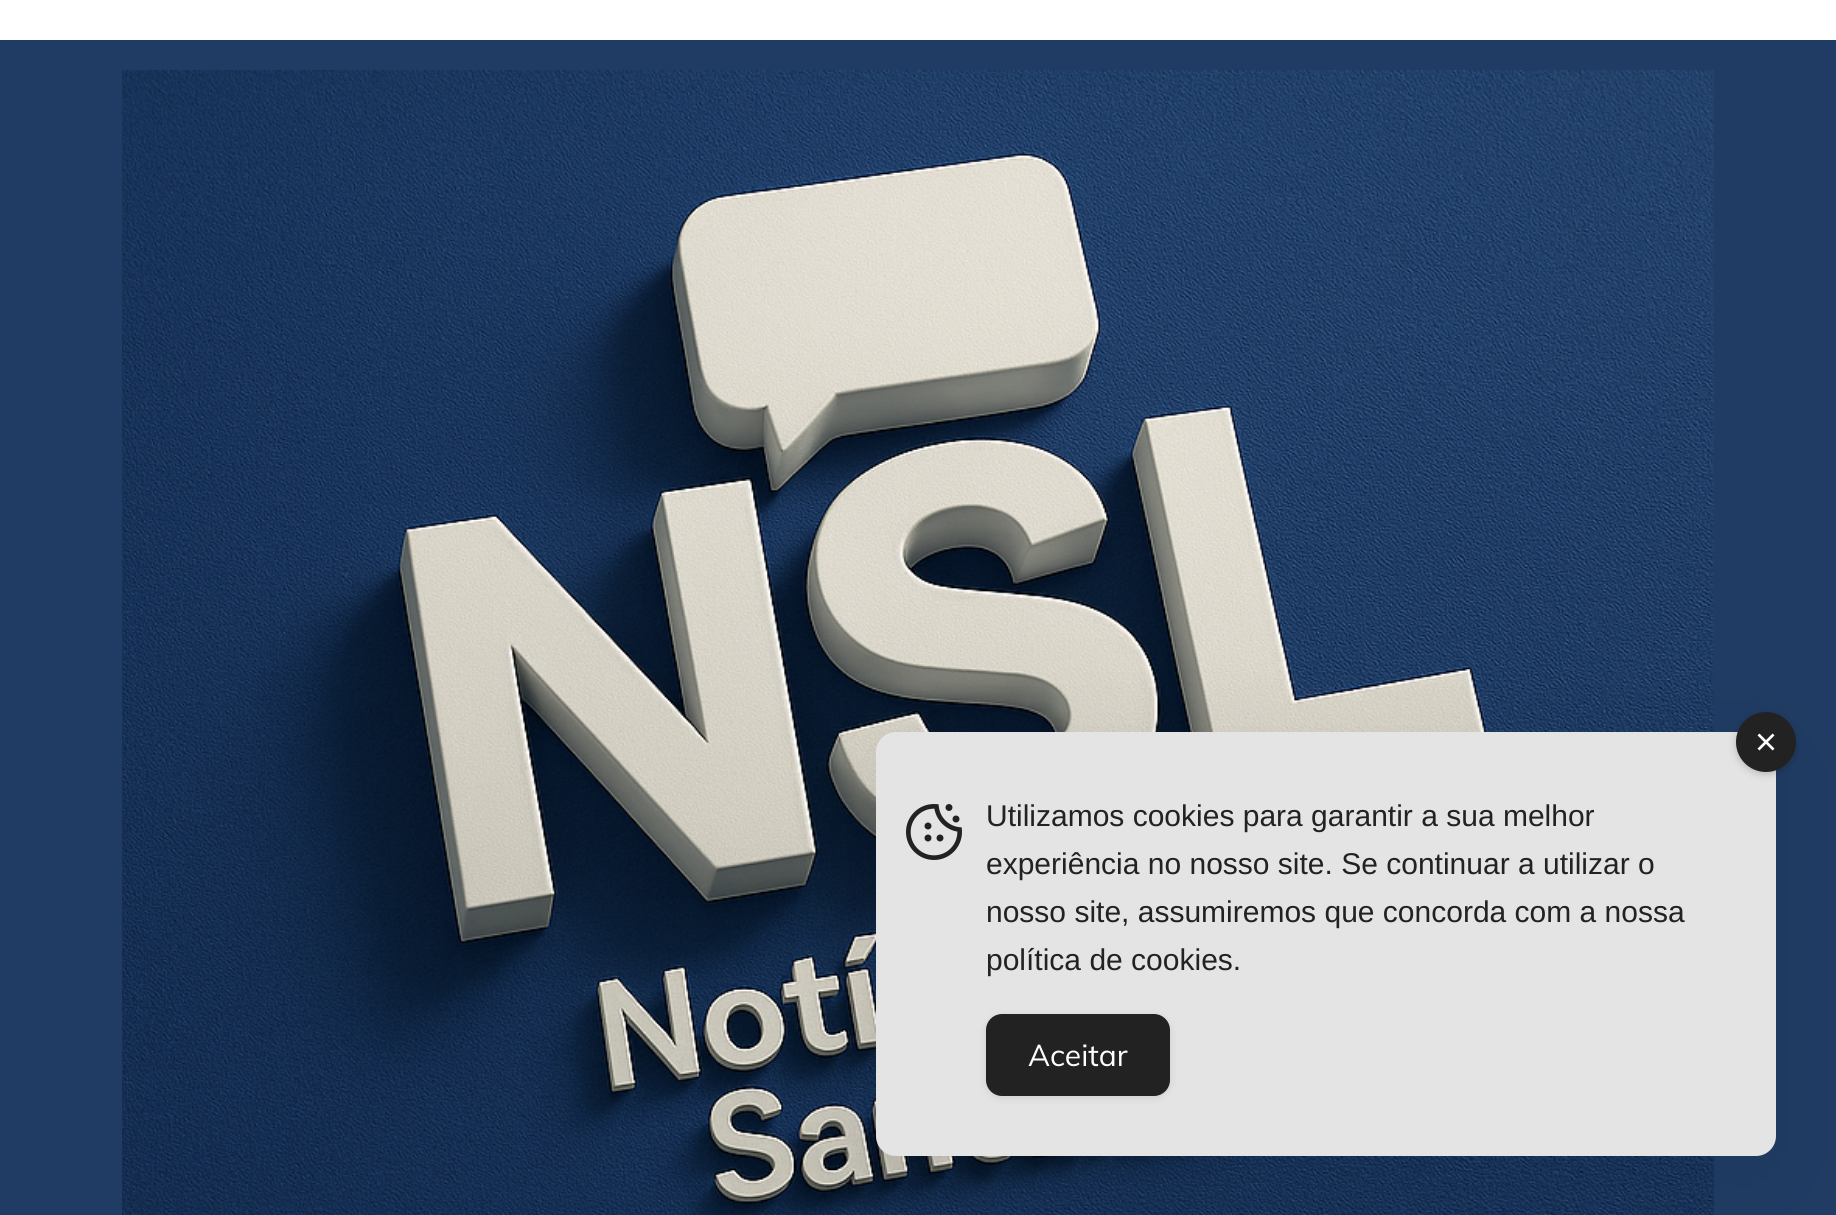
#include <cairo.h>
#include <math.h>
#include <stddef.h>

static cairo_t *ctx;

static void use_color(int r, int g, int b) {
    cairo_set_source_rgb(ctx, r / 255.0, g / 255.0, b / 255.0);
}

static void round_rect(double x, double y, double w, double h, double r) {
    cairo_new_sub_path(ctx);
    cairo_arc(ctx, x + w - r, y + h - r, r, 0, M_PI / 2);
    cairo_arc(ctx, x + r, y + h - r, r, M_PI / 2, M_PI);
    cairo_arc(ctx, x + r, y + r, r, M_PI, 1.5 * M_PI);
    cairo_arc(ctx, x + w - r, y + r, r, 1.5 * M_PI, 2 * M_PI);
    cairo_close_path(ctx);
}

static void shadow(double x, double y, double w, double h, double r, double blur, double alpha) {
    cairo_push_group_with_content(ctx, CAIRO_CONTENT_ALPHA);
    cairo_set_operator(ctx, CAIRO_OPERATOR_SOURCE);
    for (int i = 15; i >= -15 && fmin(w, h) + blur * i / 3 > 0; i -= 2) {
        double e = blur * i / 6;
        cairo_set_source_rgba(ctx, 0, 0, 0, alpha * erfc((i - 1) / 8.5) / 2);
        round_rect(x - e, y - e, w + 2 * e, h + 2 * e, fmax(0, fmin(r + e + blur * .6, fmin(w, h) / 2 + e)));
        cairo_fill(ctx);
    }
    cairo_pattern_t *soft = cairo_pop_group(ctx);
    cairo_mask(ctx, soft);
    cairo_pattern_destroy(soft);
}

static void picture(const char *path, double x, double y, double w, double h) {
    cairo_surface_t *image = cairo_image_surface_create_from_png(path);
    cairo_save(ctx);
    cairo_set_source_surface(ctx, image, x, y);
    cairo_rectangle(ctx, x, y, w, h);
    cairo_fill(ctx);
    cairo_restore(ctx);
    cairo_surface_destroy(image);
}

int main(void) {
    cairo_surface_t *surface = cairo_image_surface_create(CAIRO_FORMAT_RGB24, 1836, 1215);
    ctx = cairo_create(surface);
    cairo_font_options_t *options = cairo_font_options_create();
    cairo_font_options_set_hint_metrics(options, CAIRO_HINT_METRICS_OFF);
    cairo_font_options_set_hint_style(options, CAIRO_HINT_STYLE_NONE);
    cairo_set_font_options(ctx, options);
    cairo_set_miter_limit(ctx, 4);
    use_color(32, 60, 100);
    cairo_paint(ctx);
    use_color(255, 255, 255);
    cairo_rectangle(ctx, 0, 0, 1836, 40);
    cairo_fill(ctx);
    picture("img1.png", 122, 70, 1592, 1145);
    use_color(0, 0, 0);
    shadow(856, 732, 940, 464, 40, 40, 0.05);
    use_color(228, 228, 228);
    round_rect(876, 732, 900, 424, 20);
    cairo_fill(ctx);
    use_color(0, 0, 0);
    shadow(1736, 714, 60, 60, 30, 4, 0.2);
    use_color(34, 34, 34);
    cairo_arc(ctx, 1766, 742, 30, 0, 2 * M_PI);
    cairo_fill(ctx);
    picture("img2.png", 1757, 733, 18, 18);
    picture("img3.png", 906, 804, 56, 56);
    cairo_select_font_face(ctx, "Liberation Sans", CAIRO_FONT_SLANT_NORMAL, CAIRO_FONT_WEIGHT_NORMAL);
    cairo_set_font_size(ctx, 30);
    cairo_move_to(ctx, 986, 826);
    cairo_show_text(ctx, "Utilizamos cookies para garantir a sua melhor");
    cairo_move_to(ctx, 986, 874);
    cairo_show_text(ctx, "experiência no nosso site. Se continuar a utilizar o");
    cairo_move_to(ctx, 986, 922);
    cairo_show_text(ctx, "nosso site, assumiremos que concorda com a nossa");
    cairo_move_to(ctx, 986, 970);
    cairo_show_text(ctx, "política de cookies.");
    use_color(0, 0, 0);
    shadow(986, 1016, 184, 82, 16, 4, 0.1);
    use_color(34, 34, 34);
    round_rect(987, 1015, 182, 80, 15);
    cairo_fill_preserve(ctx);
    cairo_stroke(ctx);
    cairo_select_font_face(ctx, "Muli", CAIRO_FONT_SLANT_NORMAL, CAIRO_FONT_WEIGHT_NORMAL);
    use_color(255, 255, 255);
    cairo_move_to(ctx, 1028, 1066);
    cairo_show_text(ctx, "Aceitar");
    cairo_surface_write_to_png(surface, "result.png");
    cairo_font_options_destroy(options);
    cairo_destroy(ctx);
    cairo_surface_destroy(surface);
    return 0;
}
